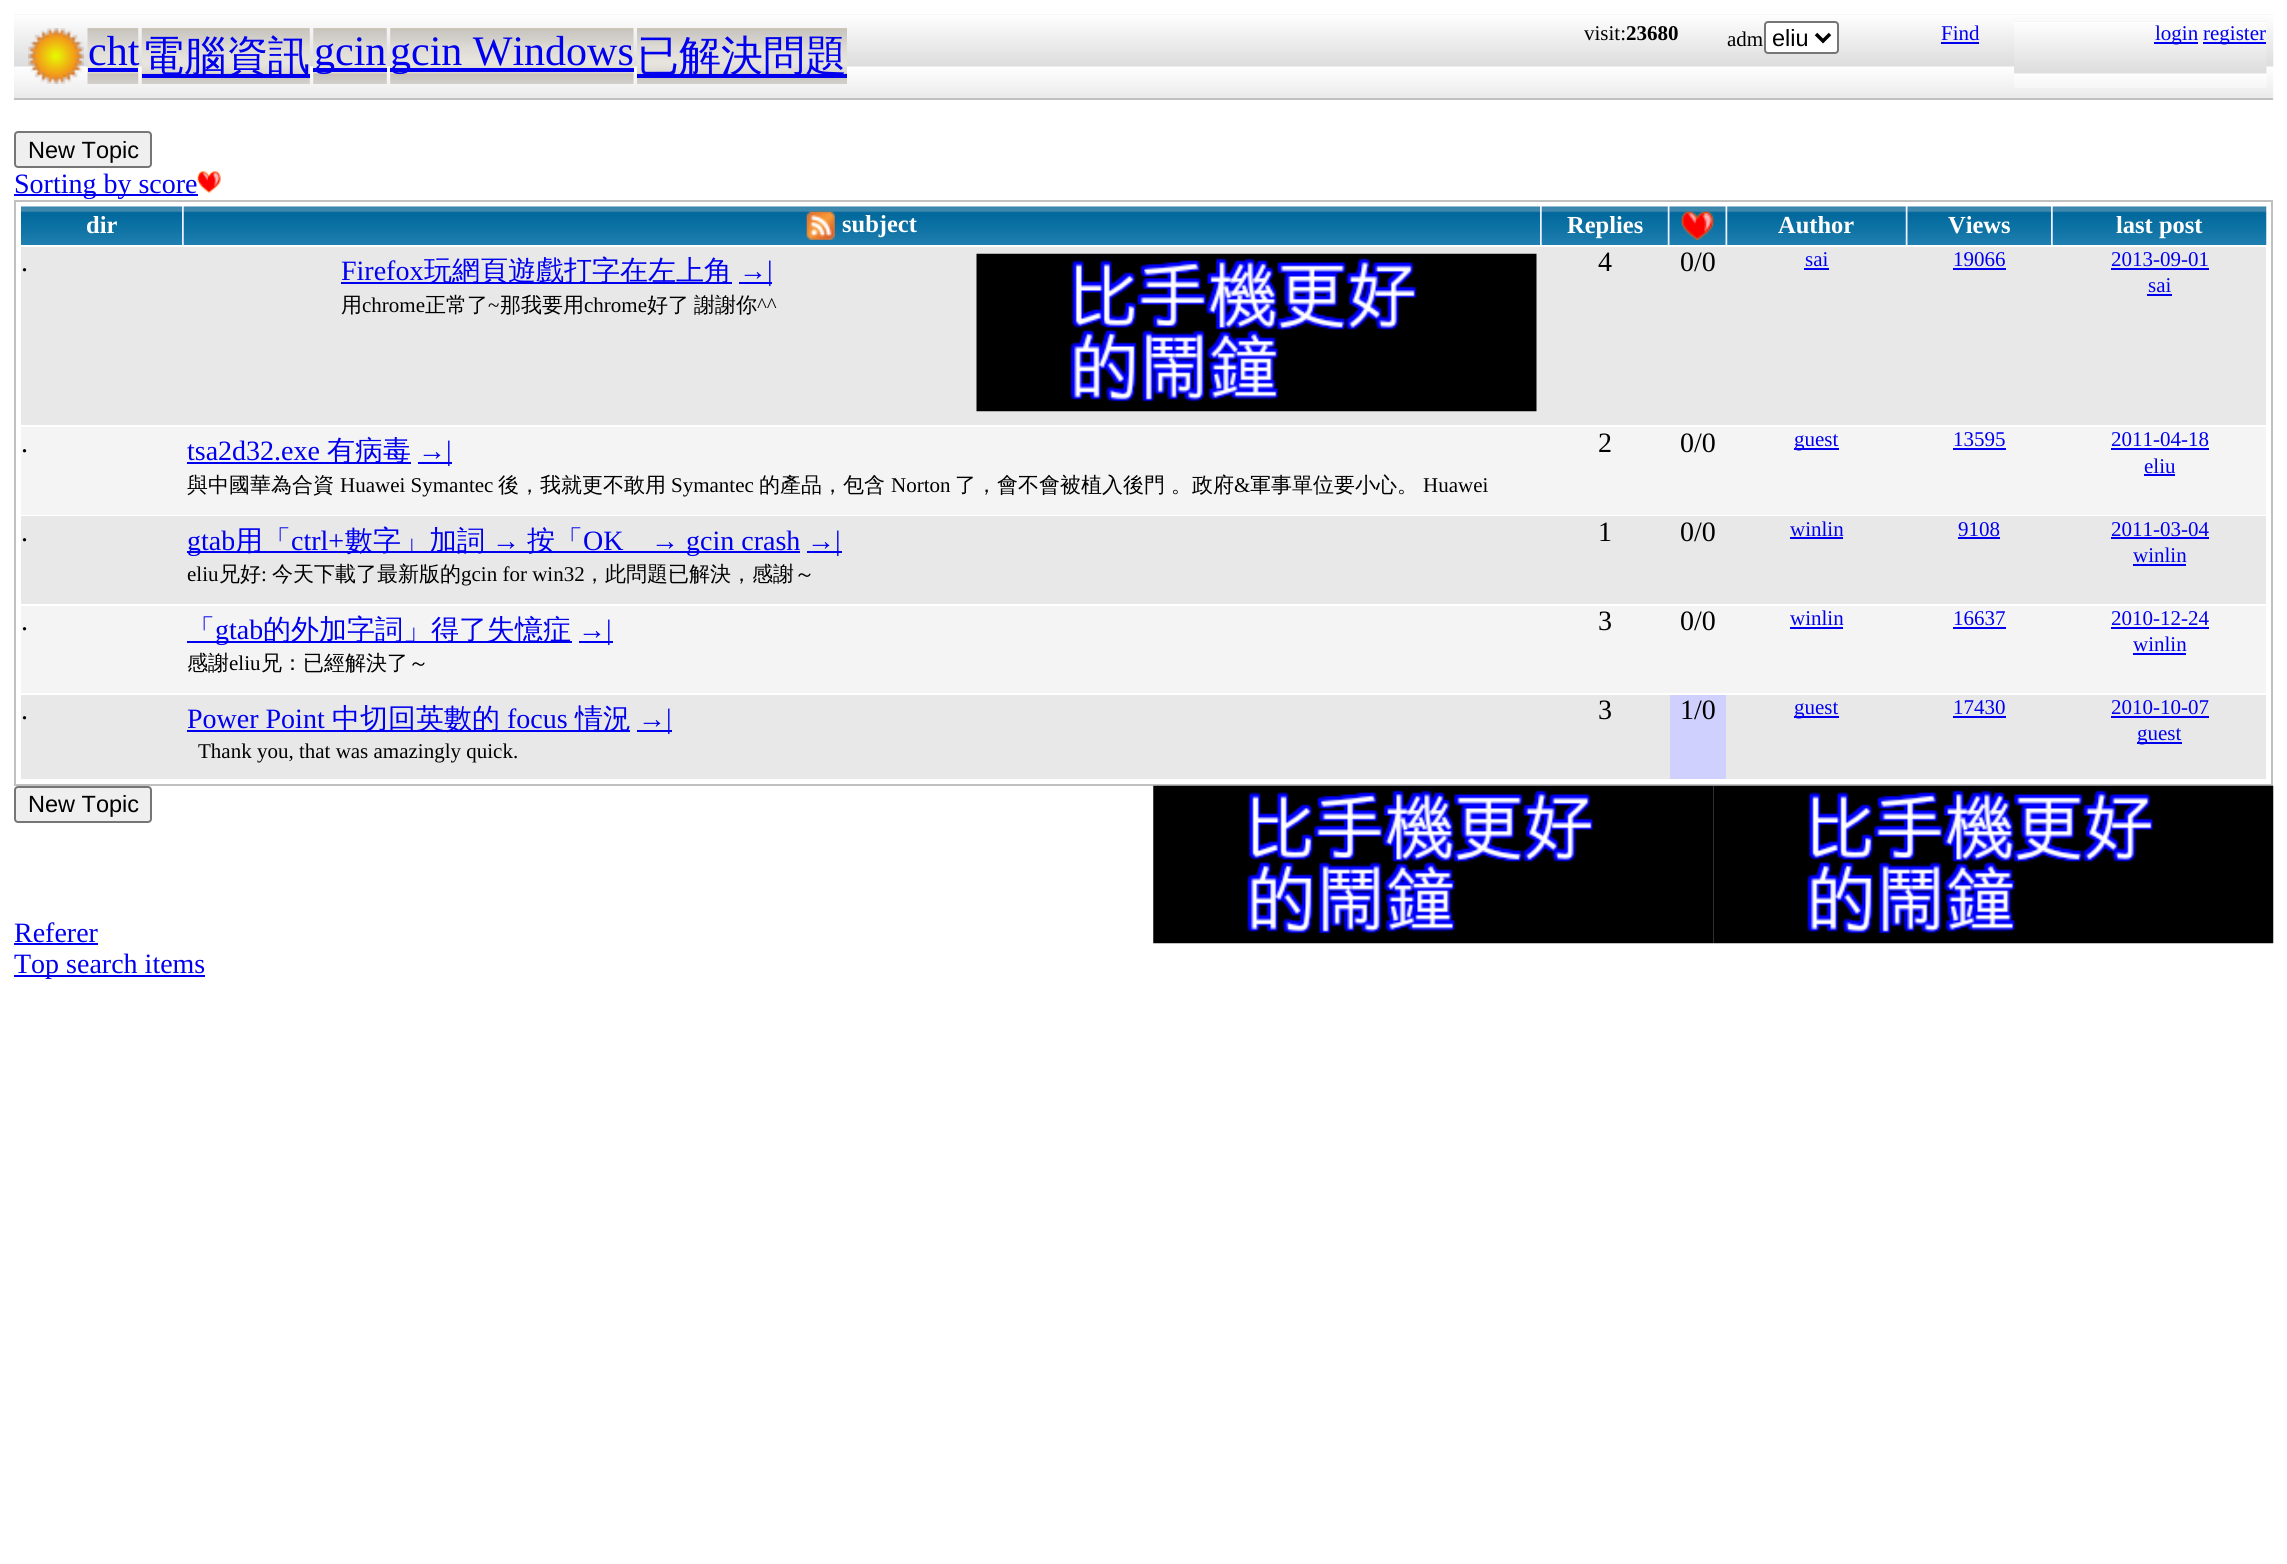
#include <cairo.h>
#include <math.h>
#include <stddef.h>

static cairo_t *ctx;

static void use_color(int r, int g, int b) {
    cairo_set_source_rgb(ctx, r / 255.0, g / 255.0, b / 255.0);
}

static void round_rect(double x, double y, double w, double h, double r) {
    cairo_new_sub_path(ctx);
    cairo_arc(ctx, x + w - r, y + h - r, r, 0, M_PI / 2);
    cairo_arc(ctx, x + r, y + h - r, r, M_PI / 2, M_PI);
    cairo_arc(ctx, x + r, y + r, r, M_PI, 1.5 * M_PI);
    cairo_arc(ctx, x + w - r, y + r, r, 1.5 * M_PI, 2 * M_PI);
    cairo_close_path(ctx);
}

static void picture(const char *path, double x, double y, double w, double h) {
    cairo_surface_t *image = cairo_image_surface_create_from_png(path);
    cairo_save(ctx);
    cairo_set_source_surface(ctx, image, x, y);
    cairo_rectangle(ctx, x, y, w, h);
    cairo_fill(ctx);
    cairo_restore(ctx);
    cairo_surface_destroy(image);
}

int main(void) {
    cairo_surface_t *surface = cairo_image_surface_create(CAIRO_FORMAT_RGB24, 2287, 1564);
    ctx = cairo_create(surface);
    cairo_font_options_t *options = cairo_font_options_create();
    cairo_font_options_set_hint_metrics(options, CAIRO_HINT_METRICS_OFF);
    cairo_font_options_set_hint_style(options, CAIRO_HINT_STYLE_NONE);
    cairo_set_font_options(ctx, options);
    cairo_set_miter_limit(ctx, 4);
    use_color(255, 255, 255);
    cairo_paint(ctx);
    picture("img1.png", 14, 14, 2260, 86);
    use_color(192, 192, 192);
    cairo_rectangle(ctx, 14, 98, 2259, 2);
    cairo_fill(ctx);
    picture("img2.png", 28, 28, 56, 56);
    picture("img3.png", 87, 28, 52, 56);
    cairo_select_font_face(ctx, "Liberation Serif", CAIRO_FONT_SLANT_NORMAL, CAIRO_FONT_WEIGHT_NORMAL);
    cairo_set_font_size(ctx, 42);
    use_color(0, 0, 238);
    cairo_move_to(ctx, 88, 65);
    cairo_show_text(ctx, "cht");
    cairo_rectangle(ctx, 88, 68, 50, 4);
    cairo_fill(ctx);
    picture("img4.png", 141, 28, 169, 56);
    cairo_rectangle(ctx, 142, 74, 168, 4);
    cairo_fill(ctx);
    cairo_select_font_face(ctx, "WenQuanYi Zen Hei Medium", CAIRO_FONT_SLANT_NORMAL, CAIRO_FONT_WEIGHT_NORMAL);
    cairo_move_to(ctx, 142, 70);
    cairo_show_text(ctx, "電腦資訊");
    picture("img5.png", 313, 28, 74, 56);
    cairo_rectangle(ctx, 313, 68, 74, 4);
    cairo_fill(ctx);
    cairo_select_font_face(ctx, "Liberation Serif", CAIRO_FONT_SLANT_NORMAL, CAIRO_FONT_WEIGHT_NORMAL);
    cairo_move_to(ctx, 314, 65);
    cairo_show_text(ctx, "gcin");
    picture("img6.png", 390, 28, 244, 56);
    cairo_rectangle(ctx, 390, 68, 244, 4);
    cairo_fill(ctx);
    cairo_move_to(ctx, 390, 65);
    cairo_show_text(ctx, "gcin Windows");
    picture("img7.png", 637, 28, 210, 56);
    cairo_rectangle(ctx, 637, 74, 210, 4);
    cairo_fill(ctx);
    cairo_select_font_face(ctx, "WenQuanYi Zen Hei Medium", CAIRO_FONT_SLANT_NORMAL, CAIRO_FONT_WEIGHT_NORMAL);
    cairo_move_to(ctx, 637, 70);
    cairo_show_text(ctx, "已解決問題");
    cairo_select_font_face(ctx, "Liberation Serif", CAIRO_FONT_SLANT_NORMAL, CAIRO_FONT_WEIGHT_NORMAL);
    cairo_set_font_size(ctx, 21);
    use_color(0, 0, 0);
    cairo_move_to(ctx, 1584, 40);
    cairo_show_text(ctx, "visit:");
    cairo_select_font_face(ctx, "Liberation Serif", CAIRO_FONT_SLANT_NORMAL, CAIRO_FONT_WEIGHT_BOLD);
    cairo_move_to(ctx, 1626, 40);
    cairo_show_text(ctx, "23680");
    cairo_select_font_face(ctx, "Liberation Serif", CAIRO_FONT_SLANT_NORMAL, CAIRO_FONT_WEIGHT_NORMAL);
    cairo_move_to(ctx, 1727, 46);
    cairo_show_text(ctx, "adm");
    use_color(255, 255, 255);
    round_rect(1765, 22, 73, 31, 3);
    cairo_fill_preserve(ctx);
    use_color(118, 118, 118);
    cairo_stroke(ctx);
    cairo_new_path(ctx);
    cairo_move_to(ctx, 1816, 34);
    cairo_line_to(ctx, 1823, 41);
    cairo_line_to(ctx, 1830, 34);
    use_color(0, 0, 0);
    cairo_set_line_width(ctx, 3.5);
    cairo_stroke(ctx);
    cairo_select_font_face(ctx, "Liberation Sans", CAIRO_FONT_SLANT_NORMAL, CAIRO_FONT_WEIGHT_NORMAL);
    cairo_set_font_size(ctx, 23.5);
    cairo_move_to(ctx, 1772, 46);
    cairo_show_text(ctx, "eliu");
    cairo_select_font_face(ctx, "Liberation Serif", CAIRO_FONT_SLANT_NORMAL, CAIRO_FONT_WEIGHT_NORMAL);
    cairo_set_font_size(ctx, 21);
    use_color(0, 0, 238);
    cairo_move_to(ctx, 1941, 40);
    cairo_show_text(ctx, "Find");
    cairo_rectangle(ctx, 1941, 42, 38, 2);
    cairo_fill(ctx);
    picture("img8.png", 2014, 21, 253, 67);
    cairo_rectangle(ctx, 2154, 42, 44, 2);
    cairo_fill(ctx);
    cairo_move_to(ctx, 2155, 40);
    cairo_show_text(ctx, "login");
    cairo_rectangle(ctx, 2203, 42, 63, 2);
    cairo_fill(ctx);
    cairo_move_to(ctx, 2203, 40);
    cairo_show_text(ctx, "register");
    use_color(239, 239, 239);
    round_rect(15, 132, 136, 35, 3);
    cairo_fill_preserve(ctx);
    use_color(118, 118, 118);
    cairo_set_line_width(ctx, 2);
    cairo_stroke(ctx);
    cairo_select_font_face(ctx, "Liberation Sans", CAIRO_FONT_SLANT_NORMAL, CAIRO_FONT_WEIGHT_NORMAL);
    cairo_set_font_size(ctx, 23.5);
    use_color(0, 0, 0);
    cairo_move_to(ctx, 28, 158);
    cairo_show_text(ctx, "New Topic");
    use_color(0, 0, 238);
    cairo_rectangle(ctx, 14, 194, 184, 2);
    cairo_fill(ctx);
    cairo_select_font_face(ctx, "Liberation Serif", CAIRO_FONT_SLANT_NORMAL, CAIRO_FONT_WEIGHT_NORMAL);
    cairo_set_font_size(ctx, 28);
    cairo_move_to(ctx, 14, 193);
    cairo_show_text(ctx, "Sorting by score");
    picture("img9.png", 197, 171, 24, 22);
    cairo_rectangle(ctx, 15, 201, 2257, 584);
    use_color(192, 192, 192);
    cairo_stroke(ctx);
    use_color(240, 240, 255);
    cairo_rectangle(ctx, 182, 207, 1871, 38);
    cairo_fill(ctx);
    picture("img10.png", 21, 206, 161, 39);
    cairo_select_font_face(ctx, "Liberation Serif", CAIRO_FONT_SLANT_NORMAL, CAIRO_FONT_WEIGHT_BOLD);
    cairo_set_font_size(ctx, 24.5);
    use_color(255, 255, 255);
    cairo_move_to(ctx, 86, 233);
    cairo_show_text(ctx, "dir");
    picture("img11.png", 183, 206, 1357, 39);
    picture("img12.png", 806, 211, 29, 29);
    cairo_move_to(ctx, 842, 232);
    cairo_show_text(ctx, "subject");
    picture("img13.png", 1541, 206, 127, 39);
    cairo_move_to(ctx, 1567, 233);
    cairo_show_text(ctx, "Replies");
    picture("img14.png", 1669, 206, 57, 39);
    picture("img15.png", 1681, 211, 33, 29);
    picture("img16.png", 1727, 206, 179, 39);
    cairo_move_to(ctx, 1778, 233);
    cairo_show_text(ctx, "Author");
    picture("img17.png", 1907, 206, 144, 39);
    cairo_move_to(ctx, 1948, 233);
    cairo_show_text(ctx, "Views");
    picture("img18.png", 2052, 206, 215, 39);
    cairo_move_to(ctx, 2116, 233);
    cairo_show_text(ctx, "last post");
    use_color(232, 232, 232);
    cairo_rectangle(ctx, 21, 247, 2245, 178);
    cairo_fill(ctx);
    cairo_select_font_face(ctx, "Liberation Serif", CAIRO_FONT_SLANT_NORMAL, CAIRO_FONT_WEIGHT_NORMAL);
    cairo_set_font_size(ctx, 28);
    use_color(0, 0, 0);
    cairo_move_to(ctx, 21, 271);
    cairo_show_text(ctx, ".");
    use_color(0, 0, 238);
    cairo_move_to(ctx, 341, 280);
    cairo_show_text(ctx, "Firefox");
    cairo_rectangle(ctx, 341, 282, 391, 2);
    cairo_fill(ctx);
    cairo_select_font_face(ctx, "WenQuanYi Zen Hei Medium", CAIRO_FONT_SLANT_NORMAL, CAIRO_FONT_WEIGHT_NORMAL);
    cairo_move_to(ctx, 424, 280);
    cairo_show_text(ctx, "玩網頁遊戲打字在左上角");
    cairo_rectangle(ctx, 739, 282, 33, 2);
    cairo_fill(ctx);
    cairo_select_font_face(ctx, "Liberation Serif", CAIRO_FONT_SLANT_NORMAL, CAIRO_FONT_WEIGHT_NORMAL);
    cairo_move_to(ctx, 739, 280);
    cairo_show_text(ctx, "→|");
    picture("img19.png", 976, 253, 561, 159);
    cairo_select_font_face(ctx, "WenQuanYi Zen Hei Medium", CAIRO_FONT_SLANT_NORMAL, CAIRO_FONT_WEIGHT_NORMAL);
    cairo_set_font_size(ctx, 21);
    use_color(0, 0, 0);
    cairo_move_to(ctx, 341, 312);
    cairo_show_text(ctx, "用");
    cairo_select_font_face(ctx, "Liberation Serif", CAIRO_FONT_SLANT_NORMAL, CAIRO_FONT_WEIGHT_NORMAL);
    cairo_move_to(ctx, 362, 312);
    cairo_show_text(ctx, "chrome");
    cairo_select_font_face(ctx, "WenQuanYi Zen Hei Medium", CAIRO_FONT_SLANT_NORMAL, CAIRO_FONT_WEIGHT_NORMAL);
    cairo_move_to(ctx, 425, 312);
    cairo_show_text(ctx, "正常了");
    cairo_select_font_face(ctx, "Liberation Serif", CAIRO_FONT_SLANT_NORMAL, CAIRO_FONT_WEIGHT_NORMAL);
    cairo_move_to(ctx, 488, 312);
    cairo_show_text(ctx, "~");
    cairo_select_font_face(ctx, "WenQuanYi Zen Hei Medium", CAIRO_FONT_SLANT_NORMAL, CAIRO_FONT_WEIGHT_NORMAL);
    cairo_move_to(ctx, 500, 312);
    cairo_show_text(ctx, "那我要用");
    cairo_select_font_face(ctx, "Liberation Serif", CAIRO_FONT_SLANT_NORMAL, CAIRO_FONT_WEIGHT_NORMAL);
    cairo_move_to(ctx, 584, 312);
    cairo_show_text(ctx, "chrome");
    cairo_select_font_face(ctx, "WenQuanYi Zen Hei Medium", CAIRO_FONT_SLANT_NORMAL, CAIRO_FONT_WEIGHT_NORMAL);
    cairo_move_to(ctx, 647, 312);
    cairo_show_text(ctx, "好了");
    cairo_move_to(ctx, 694, 312);
    cairo_show_text(ctx, "謝謝你");
    cairo_select_font_face(ctx, "Liberation Serif", CAIRO_FONT_SLANT_NORMAL, CAIRO_FONT_WEIGHT_NORMAL);
    cairo_move_to(ctx, 757, 312);
    cairo_show_text(ctx, "^^");
    cairo_set_font_size(ctx, 28);
    cairo_move_to(ctx, 1598, 271);
    cairo_show_text(ctx, "4");
    cairo_move_to(ctx, 1680, 271);
    cairo_show_text(ctx, "0/0");
    cairo_set_font_size(ctx, 21);
    use_color(0, 0, 238);
    cairo_move_to(ctx, 1805, 266);
    cairo_show_text(ctx, "sai");
    cairo_rectangle(ctx, 1804, 268, 25, 2);
    cairo_fill(ctx);
    cairo_move_to(ctx, 1953, 266);
    cairo_show_text(ctx, "19066");
    cairo_rectangle(ctx, 1953, 268, 53, 2);
    cairo_fill(ctx);
    cairo_move_to(ctx, 2111, 266);
    cairo_show_text(ctx, "2013-09-01");
    cairo_rectangle(ctx, 2111, 268, 98, 2);
    cairo_fill(ctx);
    cairo_move_to(ctx, 2148, 292);
    cairo_show_text(ctx, "sai");
    cairo_rectangle(ctx, 2147, 294, 25, 2);
    cairo_fill(ctx);
    use_color(244, 244, 244);
    cairo_rectangle(ctx, 21, 427, 2245, 88);
    cairo_fill(ctx);
    cairo_set_font_size(ctx, 28);
    use_color(0, 0, 0);
    cairo_move_to(ctx, 21, 452);
    cairo_show_text(ctx, ".");
    use_color(0, 0, 238);
    cairo_move_to(ctx, 187, 460);
    cairo_show_text(ctx, "tsa2d32.exe");
    cairo_rectangle(ctx, 187, 462, 224, 2);
    cairo_fill(ctx);
    cairo_select_font_face(ctx, "WenQuanYi Zen Hei Medium", CAIRO_FONT_SLANT_NORMAL, CAIRO_FONT_WEIGHT_NORMAL);
    cairo_move_to(ctx, 327, 460);
    cairo_show_text(ctx, "有病毒");
    cairo_rectangle(ctx, 418, 462, 34, 2);
    cairo_fill(ctx);
    cairo_select_font_face(ctx, "Liberation Serif", CAIRO_FONT_SLANT_NORMAL, CAIRO_FONT_WEIGHT_NORMAL);
    cairo_move_to(ctx, 418, 460);
    cairo_show_text(ctx, "→|");
    cairo_select_font_face(ctx, "WenQuanYi Zen Hei Medium", CAIRO_FONT_SLANT_NORMAL, CAIRO_FONT_WEIGHT_NORMAL);
    cairo_set_font_size(ctx, 21);
    use_color(0, 0, 0);
    cairo_move_to(ctx, 187, 492);
    cairo_show_text(ctx, "與中國華為合資");
    cairo_select_font_face(ctx, "Liberation Serif", CAIRO_FONT_SLANT_NORMAL, CAIRO_FONT_WEIGHT_NORMAL);
    cairo_move_to(ctx, 340, 492);
    cairo_show_text(ctx, "Huawei Symantec");
    cairo_select_font_face(ctx, "WenQuanYi Zen Hei Medium", CAIRO_FONT_SLANT_NORMAL, CAIRO_FONT_WEIGHT_NORMAL);
    cairo_move_to(ctx, 498, 492);
    cairo_show_text(ctx, "後，我就更不敢用");
    cairo_select_font_face(ctx, "Liberation Serif", CAIRO_FONT_SLANT_NORMAL, CAIRO_FONT_WEIGHT_NORMAL);
    cairo_move_to(ctx, 671, 492);
    cairo_show_text(ctx, "Symantec");
    cairo_select_font_face(ctx, "WenQuanYi Zen Hei Medium", CAIRO_FONT_SLANT_NORMAL, CAIRO_FONT_WEIGHT_NORMAL);
    cairo_move_to(ctx, 759, 492);
    cairo_show_text(ctx, "的產品，包含");
    cairo_select_font_face(ctx, "Liberation Serif", CAIRO_FONT_SLANT_NORMAL, CAIRO_FONT_WEIGHT_NORMAL);
    cairo_move_to(ctx, 891, 492);
    cairo_show_text(ctx, "Norton");
    cairo_select_font_face(ctx, "WenQuanYi Zen Hei Medium", CAIRO_FONT_SLANT_NORMAL, CAIRO_FONT_WEIGHT_NORMAL);
    cairo_move_to(ctx, 955, 492);
    cairo_show_text(ctx, "了，會不會被植入後門");
    cairo_move_to(ctx, 1171, 492);
    cairo_show_text(ctx, "。政府");
    cairo_select_font_face(ctx, "Liberation Serif", CAIRO_FONT_SLANT_NORMAL, CAIRO_FONT_WEIGHT_NORMAL);
    cairo_move_to(ctx, 1234, 492);
    cairo_show_text(ctx, "&");
    cairo_select_font_face(ctx, "WenQuanYi Zen Hei Medium", CAIRO_FONT_SLANT_NORMAL, CAIRO_FONT_WEIGHT_NORMAL);
    cairo_move_to(ctx, 1250, 492);
    cairo_show_text(ctx, "軍事單位要小心。");
    cairo_select_font_face(ctx, "Liberation Serif", CAIRO_FONT_SLANT_NORMAL, CAIRO_FONT_WEIGHT_NORMAL);
    cairo_move_to(ctx, 1423, 492);
    cairo_show_text(ctx, "Huawei");
    cairo_set_font_size(ctx, 28);
    cairo_move_to(ctx, 1598, 452);
    cairo_show_text(ctx, "2");
    cairo_move_to(ctx, 1680, 452);
    cairo_show_text(ctx, "0/0");
    use_color(0, 0, 238);
    cairo_rectangle(ctx, 1794, 448, 45, 2);
    cairo_fill(ctx);
    cairo_set_font_size(ctx, 21);
    cairo_move_to(ctx, 1794, 446);
    cairo_show_text(ctx, "guest");
    cairo_move_to(ctx, 1953, 446);
    cairo_show_text(ctx, "13595");
    cairo_rectangle(ctx, 1953, 448, 53, 2);
    cairo_fill(ctx);
    cairo_move_to(ctx, 2111, 446);
    cairo_show_text(ctx, "2011-04-18");
    cairo_rectangle(ctx, 2111, 448, 98, 2);
    cairo_fill(ctx);
    cairo_move_to(ctx, 2144, 473);
    cairo_show_text(ctx, "eliu");
    cairo_rectangle(ctx, 2144, 474, 31, 2);
    cairo_fill(ctx);
    use_color(232, 232, 232);
    cairo_rectangle(ctx, 21, 516, 2245, 88);
    cairo_fill(ctx);
    cairo_set_font_size(ctx, 28);
    use_color(0, 0, 0);
    cairo_move_to(ctx, 21, 541);
    cairo_show_text(ctx, ".");
    use_color(0, 0, 238);
    cairo_rectangle(ctx, 187, 551, 613, 2);
    cairo_fill(ctx);
    cairo_move_to(ctx, 187, 550);
    cairo_show_text(ctx, "gtab");
    cairo_select_font_face(ctx, "WenQuanYi Zen Hei Medium", CAIRO_FONT_SLANT_NORMAL, CAIRO_FONT_WEIGHT_NORMAL);
    cairo_move_to(ctx, 235, 550);
    cairo_show_text(ctx, "用「");
    cairo_select_font_face(ctx, "Liberation Serif", CAIRO_FONT_SLANT_NORMAL, CAIRO_FONT_WEIGHT_NORMAL);
    cairo_move_to(ctx, 291, 550);
    cairo_show_text(ctx, "ctrl+");
    cairo_select_font_face(ctx, "WenQuanYi Zen Hei Medium", CAIRO_FONT_SLANT_NORMAL, CAIRO_FONT_WEIGHT_NORMAL);
    cairo_move_to(ctx, 345, 550);
    cairo_show_text(ctx, "數字」加詞");
    cairo_select_font_face(ctx, "Liberation Serif", CAIRO_FONT_SLANT_NORMAL, CAIRO_FONT_WEIGHT_NORMAL);
    cairo_move_to(ctx, 492, 550);
    cairo_show_text(ctx, "→");
    cairo_select_font_face(ctx, "WenQuanYi Zen Hei Medium", CAIRO_FONT_SLANT_NORMAL, CAIRO_FONT_WEIGHT_NORMAL);
    cairo_move_to(ctx, 527, 550);
    cairo_show_text(ctx, "按「");
    cairo_select_font_face(ctx, "Liberation Serif", CAIRO_FONT_SLANT_NORMAL, CAIRO_FONT_WEIGHT_NORMAL);
    cairo_move_to(ctx, 583, 550);
    cairo_show_text(ctx, "OK");
    cairo_move_to(ctx, 651, 550);
    cairo_show_text(ctx, "→ gcin crash");
    cairo_rectangle(ctx, 807, 551, 35, 2);
    cairo_fill(ctx);
    cairo_move_to(ctx, 807, 550);
    cairo_show_text(ctx, "→|");
    cairo_set_font_size(ctx, 21);
    use_color(0, 0, 0);
    cairo_move_to(ctx, 187, 581);
    cairo_show_text(ctx, "eliu");
    cairo_select_font_face(ctx, "WenQuanYi Zen Hei Medium", CAIRO_FONT_SLANT_NORMAL, CAIRO_FONT_WEIGHT_NORMAL);
    cairo_move_to(ctx, 219, 581);
    cairo_show_text(ctx, "兄好");
    cairo_select_font_face(ctx, "Liberation Serif", CAIRO_FONT_SLANT_NORMAL, CAIRO_FONT_WEIGHT_NORMAL);
    cairo_move_to(ctx, 261, 581);
    cairo_show_text(ctx, ":");
    cairo_select_font_face(ctx, "WenQuanYi Zen Hei Medium", CAIRO_FONT_SLANT_NORMAL, CAIRO_FONT_WEIGHT_NORMAL);
    cairo_move_to(ctx, 272, 581);
    cairo_show_text(ctx, "今天下載了最新版的");
    cairo_select_font_face(ctx, "Liberation Serif", CAIRO_FONT_SLANT_NORMAL, CAIRO_FONT_WEIGHT_NORMAL);
    cairo_move_to(ctx, 461, 581);
    cairo_show_text(ctx, "gcin for win32");
    cairo_select_font_face(ctx, "WenQuanYi Zen Hei Medium", CAIRO_FONT_SLANT_NORMAL, CAIRO_FONT_WEIGHT_NORMAL);
    cairo_move_to(ctx, 584, 581);
    cairo_show_text(ctx, "，此問題已解決，感謝～");
    cairo_select_font_face(ctx, "Liberation Serif", CAIRO_FONT_SLANT_NORMAL, CAIRO_FONT_WEIGHT_NORMAL);
    cairo_set_font_size(ctx, 28);
    cairo_move_to(ctx, 1598, 541);
    cairo_show_text(ctx, "1");
    cairo_move_to(ctx, 1680, 541);
    cairo_show_text(ctx, "0/0");
    cairo_set_font_size(ctx, 21);
    use_color(0, 0, 238);
    cairo_move_to(ctx, 1790, 536);
    cairo_show_text(ctx, "winlin");
    cairo_rectangle(ctx, 1790, 537, 53, 2);
    cairo_fill(ctx);
    cairo_move_to(ctx, 1958, 536);
    cairo_show_text(ctx, "9108");
    cairo_rectangle(ctx, 1958, 537, 42, 2);
    cairo_fill(ctx);
    cairo_move_to(ctx, 2111, 536);
    cairo_show_text(ctx, "2011-03-04");
    cairo_rectangle(ctx, 2111, 537, 98, 2);
    cairo_fill(ctx);
    cairo_move_to(ctx, 2133, 562);
    cairo_show_text(ctx, "winlin");
    cairo_rectangle(ctx, 2133, 564, 53, 2);
    cairo_fill(ctx);
    use_color(244, 244, 244);
    cairo_rectangle(ctx, 21, 606, 2245, 87);
    cairo_fill(ctx);
    cairo_set_font_size(ctx, 28);
    use_color(0, 0, 0);
    cairo_move_to(ctx, 21, 630);
    cairo_show_text(ctx, ".");
    cairo_select_font_face(ctx, "WenQuanYi Zen Hei Medium", CAIRO_FONT_SLANT_NORMAL, CAIRO_FONT_WEIGHT_NORMAL);
    use_color(0, 0, 238);
    cairo_move_to(ctx, 187, 639);
    cairo_show_text(ctx, "「");
    cairo_rectangle(ctx, 187, 641, 385, 2);
    cairo_fill(ctx);
    cairo_select_font_face(ctx, "Liberation Serif", CAIRO_FONT_SLANT_NORMAL, CAIRO_FONT_WEIGHT_NORMAL);
    cairo_move_to(ctx, 215, 639);
    cairo_show_text(ctx, "gtab");
    cairo_select_font_face(ctx, "WenQuanYi Zen Hei Medium", CAIRO_FONT_SLANT_NORMAL, CAIRO_FONT_WEIGHT_NORMAL);
    cairo_move_to(ctx, 263, 639);
    cairo_show_text(ctx, "的外加字詞」得了失憶症");
    cairo_rectangle(ctx, 579, 641, 34, 2);
    cairo_fill(ctx);
    cairo_select_font_face(ctx, "Liberation Serif", CAIRO_FONT_SLANT_NORMAL, CAIRO_FONT_WEIGHT_NORMAL);
    cairo_move_to(ctx, 578, 639);
    cairo_show_text(ctx, "→|");
    cairo_select_font_face(ctx, "WenQuanYi Zen Hei Medium", CAIRO_FONT_SLANT_NORMAL, CAIRO_FONT_WEIGHT_NORMAL);
    cairo_set_font_size(ctx, 21);
    use_color(0, 0, 0);
    cairo_move_to(ctx, 187, 670);
    cairo_show_text(ctx, "感謝");
    cairo_select_font_face(ctx, "Liberation Serif", CAIRO_FONT_SLANT_NORMAL, CAIRO_FONT_WEIGHT_NORMAL);
    cairo_move_to(ctx, 229, 670);
    cairo_show_text(ctx, "eliu");
    cairo_select_font_face(ctx, "WenQuanYi Zen Hei Medium", CAIRO_FONT_SLANT_NORMAL, CAIRO_FONT_WEIGHT_NORMAL);
    cairo_move_to(ctx, 261, 670);
    cairo_show_text(ctx, "兄：已經解決了～");
    cairo_select_font_face(ctx, "Liberation Serif", CAIRO_FONT_SLANT_NORMAL, CAIRO_FONT_WEIGHT_NORMAL);
    cairo_set_font_size(ctx, 28);
    cairo_move_to(ctx, 1598, 630);
    cairo_show_text(ctx, "3");
    cairo_move_to(ctx, 1680, 630);
    cairo_show_text(ctx, "0/0");
    cairo_set_font_size(ctx, 21);
    use_color(0, 0, 238);
    cairo_move_to(ctx, 1790, 625);
    cairo_show_text(ctx, "winlin");
    cairo_rectangle(ctx, 1790, 627, 53, 2);
    cairo_fill(ctx);
    cairo_move_to(ctx, 1953, 625);
    cairo_show_text(ctx, "16637");
    cairo_rectangle(ctx, 1953, 627, 53, 2);
    cairo_fill(ctx);
    cairo_move_to(ctx, 2111, 625);
    cairo_show_text(ctx, "2010-12-24");
    cairo_rectangle(ctx, 2111, 627, 98, 2);
    cairo_fill(ctx);
    cairo_move_to(ctx, 2133, 651);
    cairo_show_text(ctx, "winlin");
    cairo_rectangle(ctx, 2133, 653, 53, 2);
    cairo_fill(ctx);
    use_color(232, 232, 232);
    cairo_rectangle(ctx, 21, 695, 2245, 84);
    cairo_fill(ctx);
    cairo_set_font_size(ctx, 28);
    use_color(0, 0, 0);
    cairo_move_to(ctx, 21, 719);
    cairo_show_text(ctx, ".");
    use_color(0, 0, 238);
    cairo_move_to(ctx, 187, 728);
    cairo_show_text(ctx, "Power Point");
    cairo_rectangle(ctx, 187, 730, 443, 2);
    cairo_fill(ctx);
    cairo_select_font_face(ctx, "WenQuanYi Zen Hei Medium", CAIRO_FONT_SLANT_NORMAL, CAIRO_FONT_WEIGHT_NORMAL);
    cairo_move_to(ctx, 332, 728);
    cairo_show_text(ctx, "中切回英數的");
    cairo_select_font_face(ctx, "Liberation Serif", CAIRO_FONT_SLANT_NORMAL, CAIRO_FONT_WEIGHT_NORMAL);
    cairo_move_to(ctx, 507, 728);
    cairo_show_text(ctx, "focus");
    cairo_select_font_face(ctx, "WenQuanYi Zen Hei Medium", CAIRO_FONT_SLANT_NORMAL, CAIRO_FONT_WEIGHT_NORMAL);
    cairo_move_to(ctx, 575, 728);
    cairo_show_text(ctx, "情況");
    cairo_rectangle(ctx, 637, 730, 35, 2);
    cairo_fill(ctx);
    cairo_select_font_face(ctx, "Liberation Serif", CAIRO_FONT_SLANT_NORMAL, CAIRO_FONT_WEIGHT_NORMAL);
    cairo_move_to(ctx, 638, 728);
    cairo_show_text(ctx, "→|");
    cairo_set_font_size(ctx, 21);
    use_color(0, 0, 0);
    cairo_move_to(ctx, 198, 758);
    cairo_show_text(ctx, "Thank you, that was amazingly quick.");
    cairo_set_font_size(ctx, 28);
    cairo_move_to(ctx, 1598, 719);
    cairo_show_text(ctx, "3");
    use_color(208, 208, 255);
    cairo_rectangle(ctx, 1670, 695, 56, 84);
    cairo_fill(ctx);
    use_color(0, 0, 0);
    cairo_move_to(ctx, 1680, 719);
    cairo_show_text(ctx, "1/0");
    use_color(0, 0, 238);
    cairo_rectangle(ctx, 1794, 716, 45, 2);
    cairo_fill(ctx);
    cairo_set_font_size(ctx, 21);
    cairo_move_to(ctx, 1794, 714);
    cairo_show_text(ctx, "guest");
    cairo_move_to(ctx, 1953, 714);
    cairo_show_text(ctx, "17430");
    cairo_rectangle(ctx, 1953, 716, 53, 2);
    cairo_fill(ctx);
    cairo_move_to(ctx, 2111, 714);
    cairo_show_text(ctx, "2010-10-07");
    cairo_rectangle(ctx, 2111, 716, 98, 2);
    cairo_fill(ctx);
    cairo_rectangle(ctx, 2137, 742, 45, 2);
    cairo_fill(ctx);
    cairo_move_to(ctx, 2137, 740);
    cairo_show_text(ctx, "guest");
    use_color(239, 239, 239);
    round_rect(15, 787, 136, 35, 3);
    cairo_fill_preserve(ctx);
    use_color(118, 118, 118);
    cairo_stroke(ctx);
    cairo_select_font_face(ctx, "Liberation Sans", CAIRO_FONT_SLANT_NORMAL, CAIRO_FONT_WEIGHT_NORMAL);
    cairo_set_font_size(ctx, 23.5);
    use_color(0, 0, 0);
    cairo_move_to(ctx, 28, 812);
    cairo_show_text(ctx, "New Topic");
    picture("img21.png", 1713, 785, 561, 159);
    picture("img20.png", 1153, 785, 561, 159);
    cairo_select_font_face(ctx, "Liberation Serif", CAIRO_FONT_SLANT_NORMAL, CAIRO_FONT_WEIGHT_NORMAL);
    cairo_set_font_size(ctx, 28);
    use_color(0, 0, 238);
    cairo_move_to(ctx, 14, 942);
    cairo_show_text(ctx, "Referer");
    cairo_rectangle(ctx, 14, 943, 84, 2);
    cairo_fill(ctx);
    cairo_rectangle(ctx, 14, 975, 191, 2);
    cairo_fill(ctx);
    cairo_move_to(ctx, 14, 973);
    cairo_show_text(ctx, "Top search items");
    cairo_surface_write_to_png(surface, "result.png");
    cairo_font_options_destroy(options);
    cairo_destroy(ctx);
    cairo_surface_destroy(surface);
    return 0;
}
